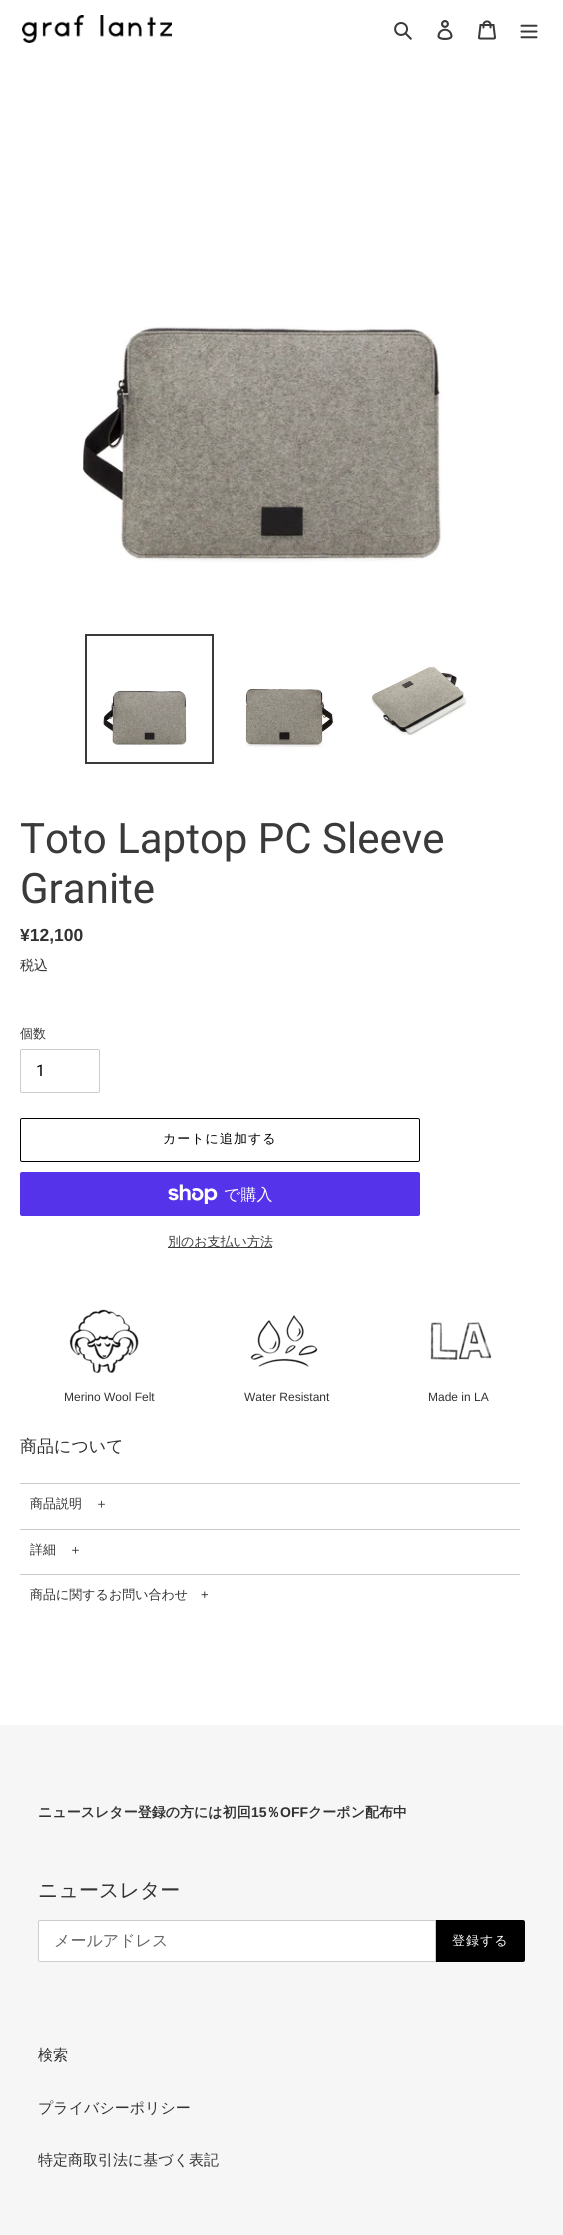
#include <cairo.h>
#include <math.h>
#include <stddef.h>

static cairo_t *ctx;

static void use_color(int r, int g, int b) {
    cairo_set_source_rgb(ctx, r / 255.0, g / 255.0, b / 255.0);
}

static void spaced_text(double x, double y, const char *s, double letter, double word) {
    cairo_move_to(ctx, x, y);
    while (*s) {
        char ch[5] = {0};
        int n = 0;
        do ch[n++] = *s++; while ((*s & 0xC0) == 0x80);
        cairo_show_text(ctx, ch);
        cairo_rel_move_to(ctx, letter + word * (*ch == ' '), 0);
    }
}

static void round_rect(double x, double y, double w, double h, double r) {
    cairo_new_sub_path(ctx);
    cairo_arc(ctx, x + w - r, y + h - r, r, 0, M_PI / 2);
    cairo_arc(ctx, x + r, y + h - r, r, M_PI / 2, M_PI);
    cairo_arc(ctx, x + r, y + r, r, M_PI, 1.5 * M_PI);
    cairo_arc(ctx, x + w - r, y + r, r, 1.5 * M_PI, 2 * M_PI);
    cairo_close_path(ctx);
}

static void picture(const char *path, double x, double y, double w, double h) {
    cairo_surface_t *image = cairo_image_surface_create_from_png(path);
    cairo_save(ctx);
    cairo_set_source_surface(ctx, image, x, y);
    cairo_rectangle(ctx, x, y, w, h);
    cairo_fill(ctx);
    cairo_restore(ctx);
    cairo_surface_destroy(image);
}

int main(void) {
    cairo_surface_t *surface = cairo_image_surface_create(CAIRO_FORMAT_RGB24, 563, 2235);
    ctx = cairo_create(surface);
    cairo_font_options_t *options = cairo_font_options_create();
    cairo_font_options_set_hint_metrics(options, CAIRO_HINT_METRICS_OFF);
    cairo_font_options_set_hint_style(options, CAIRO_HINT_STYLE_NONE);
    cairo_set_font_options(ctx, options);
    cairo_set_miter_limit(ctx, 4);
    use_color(255, 255, 255);
    cairo_paint(ctx);
    picture("img1.png", 22, 15, 150, 28);
    picture("img2.png", 394, 22, 18, 18);
    picture("img3.png", 437, 20, 16, 20);
    picture("img4.png", 478, 20, 18, 20);
    picture("img5.png", 520, 24, 18, 15);
    picture("img6.png", 82, 326, 360, 237);
    cairo_rectangle(ctx, 86, 635, 127, 128);
    use_color(58, 58, 58);
    cairo_stroke(ctx);
    picture("img7.png", 102, 690, 85, 55);
    picture("img8.png", 245, 688, 89, 61);
    picture("img9.png", 371, 666, 96, 70);
    cairo_select_font_face(ctx, "Roboto", CAIRO_FONT_SLANT_NORMAL, CAIRO_FONT_WEIGHT_NORMAL);
    cairo_set_font_size(ctx, 42);
    cairo_move_to(ctx, 20, 853);
    cairo_show_text(ctx, "Toto Laptop PC Sleeve");
    cairo_move_to(ctx, 20, 903);
    cairo_show_text(ctx, "Granite");
    cairo_select_font_face(ctx, "Liberation Sans", CAIRO_FONT_SLANT_NORMAL, CAIRO_FONT_WEIGHT_BOLD);
    cairo_set_font_size(ctx, 17.5);
    use_color(51, 50, 50);
    cairo_move_to(ctx, 20, 941);
    cairo_show_text(ctx, "¥12,100");
    cairo_select_font_face(ctx, "WenQuanYi Zen Hei Medium", CAIRO_FONT_SLANT_NORMAL, CAIRO_FONT_WEIGHT_NORMAL);
    cairo_set_font_size(ctx, 14);
    cairo_move_to(ctx, 20, 970);
    cairo_show_text(ctx, "税込");
    cairo_set_font_size(ctx, 13);
    use_color(58, 58, 58);
    cairo_move_to(ctx, 20, 1038);
    cairo_show_text(ctx, "個数");
    round_rect(20.5, 1049.5, 79, 43, 1.5);
    use_color(204, 204, 204);
    cairo_set_line_width(ctx, 1);
    cairo_stroke(ctx);
    cairo_select_font_face(ctx, "Roboto", CAIRO_FONT_SLANT_NORMAL, CAIRO_FONT_WEIGHT_NORMAL);
    cairo_set_font_size(ctx, 16);
    use_color(0, 0, 0);
    cairo_move_to(ctx, 36, 1076);
    cairo_show_text(ctx, "1");
    round_rect(20.5, 1118.5, 399, 43, 1.5);
    cairo_stroke(ctx);
    cairo_select_font_face(ctx, "WenQuanYi Zen Hei Medium", CAIRO_FONT_SLANT_NORMAL, CAIRO_FONT_WEIGHT_NORMAL);
    cairo_set_font_size(ctx, 13);
    spaced_text(163, 1143, "カートに追加する", 1, 0);
    use_color(84, 51, 235);
    round_rect(20, 1172, 400, 44, 2);
    cairo_fill(ctx);
    picture("img10.png", 168, 1184, 50, 20);
    cairo_set_font_size(ctx, 16);
    use_color(255, 255, 255);
    cairo_move_to(ctx, 224, 1200);
    cairo_show_text(ctx, "で購入");
    use_color(58, 58, 58);
    cairo_rectangle(ctx, 168, 1247, 104, 1);
    cairo_fill(ctx);
    cairo_set_font_size(ctx, 13);
    cairo_move_to(ctx, 168, 1246);
    cairo_show_text(ctx, "別のお支払い方法");
    picture("img11.png", 69, 1309, 70, 64);
    cairo_select_font_face(ctx, "Liberation Sans", CAIRO_FONT_SLANT_NORMAL, CAIRO_FONT_WEIGHT_NORMAL);
    cairo_set_font_size(ctx, 12);
    use_color(51, 50, 50);
    cairo_move_to(ctx, 64, 1401);
    cairo_show_text(ctx, "Merino Wool Felt");
    picture("img12.png", 250, 1315, 68, 52);
    cairo_move_to(ctx, 244, 1401);
    cairo_show_text(ctx, "Water Resistant");
    picture("img13.png", 430, 1322, 62, 39);
    cairo_move_to(ctx, 428, 1401);
    cairo_show_text(ctx, "Made in LA");
    cairo_select_font_face(ctx, "WenQuanYi Zen Hei Medium", CAIRO_FONT_SLANT_NORMAL, CAIRO_FONT_WEIGHT_NORMAL);
    cairo_set_font_size(ctx, 17);
    cairo_move_to(ctx, 20, 1452);
    cairo_show_text(ctx, "商品について");
    use_color(201, 201, 201);
    cairo_rectangle(ctx, 20, 1483, 500, 1);
    cairo_fill(ctx);
    cairo_set_font_size(ctx, 13);
    use_color(51, 50, 50);
    cairo_move_to(ctx, 30, 1508);
    cairo_show_text(ctx, "商品説明　＋");
    use_color(201, 201, 201);
    cairo_rectangle(ctx, 20, 1529, 500, 1);
    cairo_fill(ctx);
    use_color(51, 50, 50);
    cairo_move_to(ctx, 30, 1554);
    cairo_show_text(ctx, "詳細　＋");
    use_color(201, 201, 201);
    cairo_rectangle(ctx, 20, 1574, 500, 1);
    cairo_fill(ctx);
    use_color(51, 50, 50);
    cairo_move_to(ctx, 30, 1599);
    cairo_show_text(ctx, "商品に関するお問い合わせ");
    cairo_select_font_face(ctx, "Liberation Sans", CAIRO_FONT_SLANT_NORMAL, CAIRO_FONT_WEIGHT_NORMAL);
    cairo_move_to(ctx, 201, 1599);
    cairo_show_text(ctx, "+");
    use_color(246, 246, 246);
    cairo_rectangle(ctx, 0, 1725, 563, 510);
    cairo_fill(ctx);
    cairo_select_font_face(ctx, "WenQuanYi Zen Hei", CAIRO_FONT_SLANT_NORMAL, CAIRO_FONT_WEIGHT_BOLD);
    cairo_set_font_size(ctx, 14);
    use_color(51, 50, 50);
    cairo_move_to(ctx, 38, 1817);
    cairo_show_text(ctx, "ニュースレター登録の方には初回");
    cairo_select_font_face(ctx, "Liberation Sans", CAIRO_FONT_SLANT_NORMAL, CAIRO_FONT_WEIGHT_BOLD);
    cairo_move_to(ctx, 251, 1817);
    cairo_show_text(ctx, "15");
    cairo_select_font_face(ctx, "WenQuanYi Zen Hei", CAIRO_FONT_SLANT_NORMAL, CAIRO_FONT_WEIGHT_BOLD);
    cairo_move_to(ctx, 266, 1817);
    cairo_show_text(ctx, "％");
    cairo_select_font_face(ctx, "Liberation Sans", CAIRO_FONT_SLANT_NORMAL, CAIRO_FONT_WEIGHT_BOLD);
    cairo_move_to(ctx, 280, 1817);
    cairo_show_text(ctx, "OFF");
    cairo_select_font_face(ctx, "WenQuanYi Zen Hei", CAIRO_FONT_SLANT_NORMAL, CAIRO_FONT_WEIGHT_BOLD);
    cairo_move_to(ctx, 308, 1817);
    cairo_show_text(ctx, "クーポン配布中");
    cairo_select_font_face(ctx, "WenQuanYi Zen Hei Medium", CAIRO_FONT_SLANT_NORMAL, CAIRO_FONT_WEIGHT_NORMAL);
    cairo_set_font_size(ctx, 20);
    cairo_move_to(ctx, 38, 1897);
    cairo_show_text(ctx, "ニュースレター");
    use_color(255, 255, 255);
    cairo_new_path(ctx);
    cairo_move_to(ctx, 40, 1920.5);
    cairo_line_to(ctx, 435.5, 1920.5);
    cairo_line_to(ctx, 435.5, 1961.5);
    cairo_line_to(ctx, 40, 1961.5);
    cairo_curve_to(ctx, 39, 1961.5, 38.5, 1961, 38.5, 1960);
    cairo_line_to(ctx, 38.5, 1922);
    cairo_curve_to(ctx, 38.5, 1921, 39, 1920.5, 40, 1920.5);
    cairo_close_path(ctx);
    cairo_fill_preserve(ctx);
    use_color(204, 204, 204);
    cairo_stroke(ctx);
    cairo_set_font_size(ctx, 16);
    use_color(102, 102, 102);
    cairo_move_to(ctx, 54, 1946);
    cairo_show_text(ctx, "メールアドレス");
    use_color(0, 0, 0);
    cairo_new_path(ctx);
    cairo_move_to(ctx, 436, 1920);
    cairo_line_to(ctx, 523, 1920);
    cairo_curve_to(ctx, 524, 1920, 525, 1921, 525, 1922);
    cairo_line_to(ctx, 525, 1960);
    cairo_curve_to(ctx, 525, 1961, 524, 1962, 523, 1962);
    cairo_line_to(ctx, 436, 1962);
    cairo_close_path(ctx);
    cairo_fill(ctx);
    cairo_set_font_size(ctx, 13);
    use_color(255, 255, 255);
    spaced_text(452, 1945, "登録する", 1, 0);
    cairo_set_font_size(ctx, 15);
    use_color(51, 50, 50);
    cairo_move_to(ctx, 38, 2060);
    cairo_show_text(ctx, "検索");
    cairo_move_to(ctx, 38, 2113);
    cairo_show_text(ctx, "プライバシーポリシー");
    cairo_move_to(ctx, 38, 2165);
    cairo_show_text(ctx, "特定商取引法に基づく表記");
    cairo_surface_write_to_png(surface, "result.png");
    cairo_font_options_destroy(options);
    cairo_destroy(ctx);
    cairo_surface_destroy(surface);
    return 0;
}
